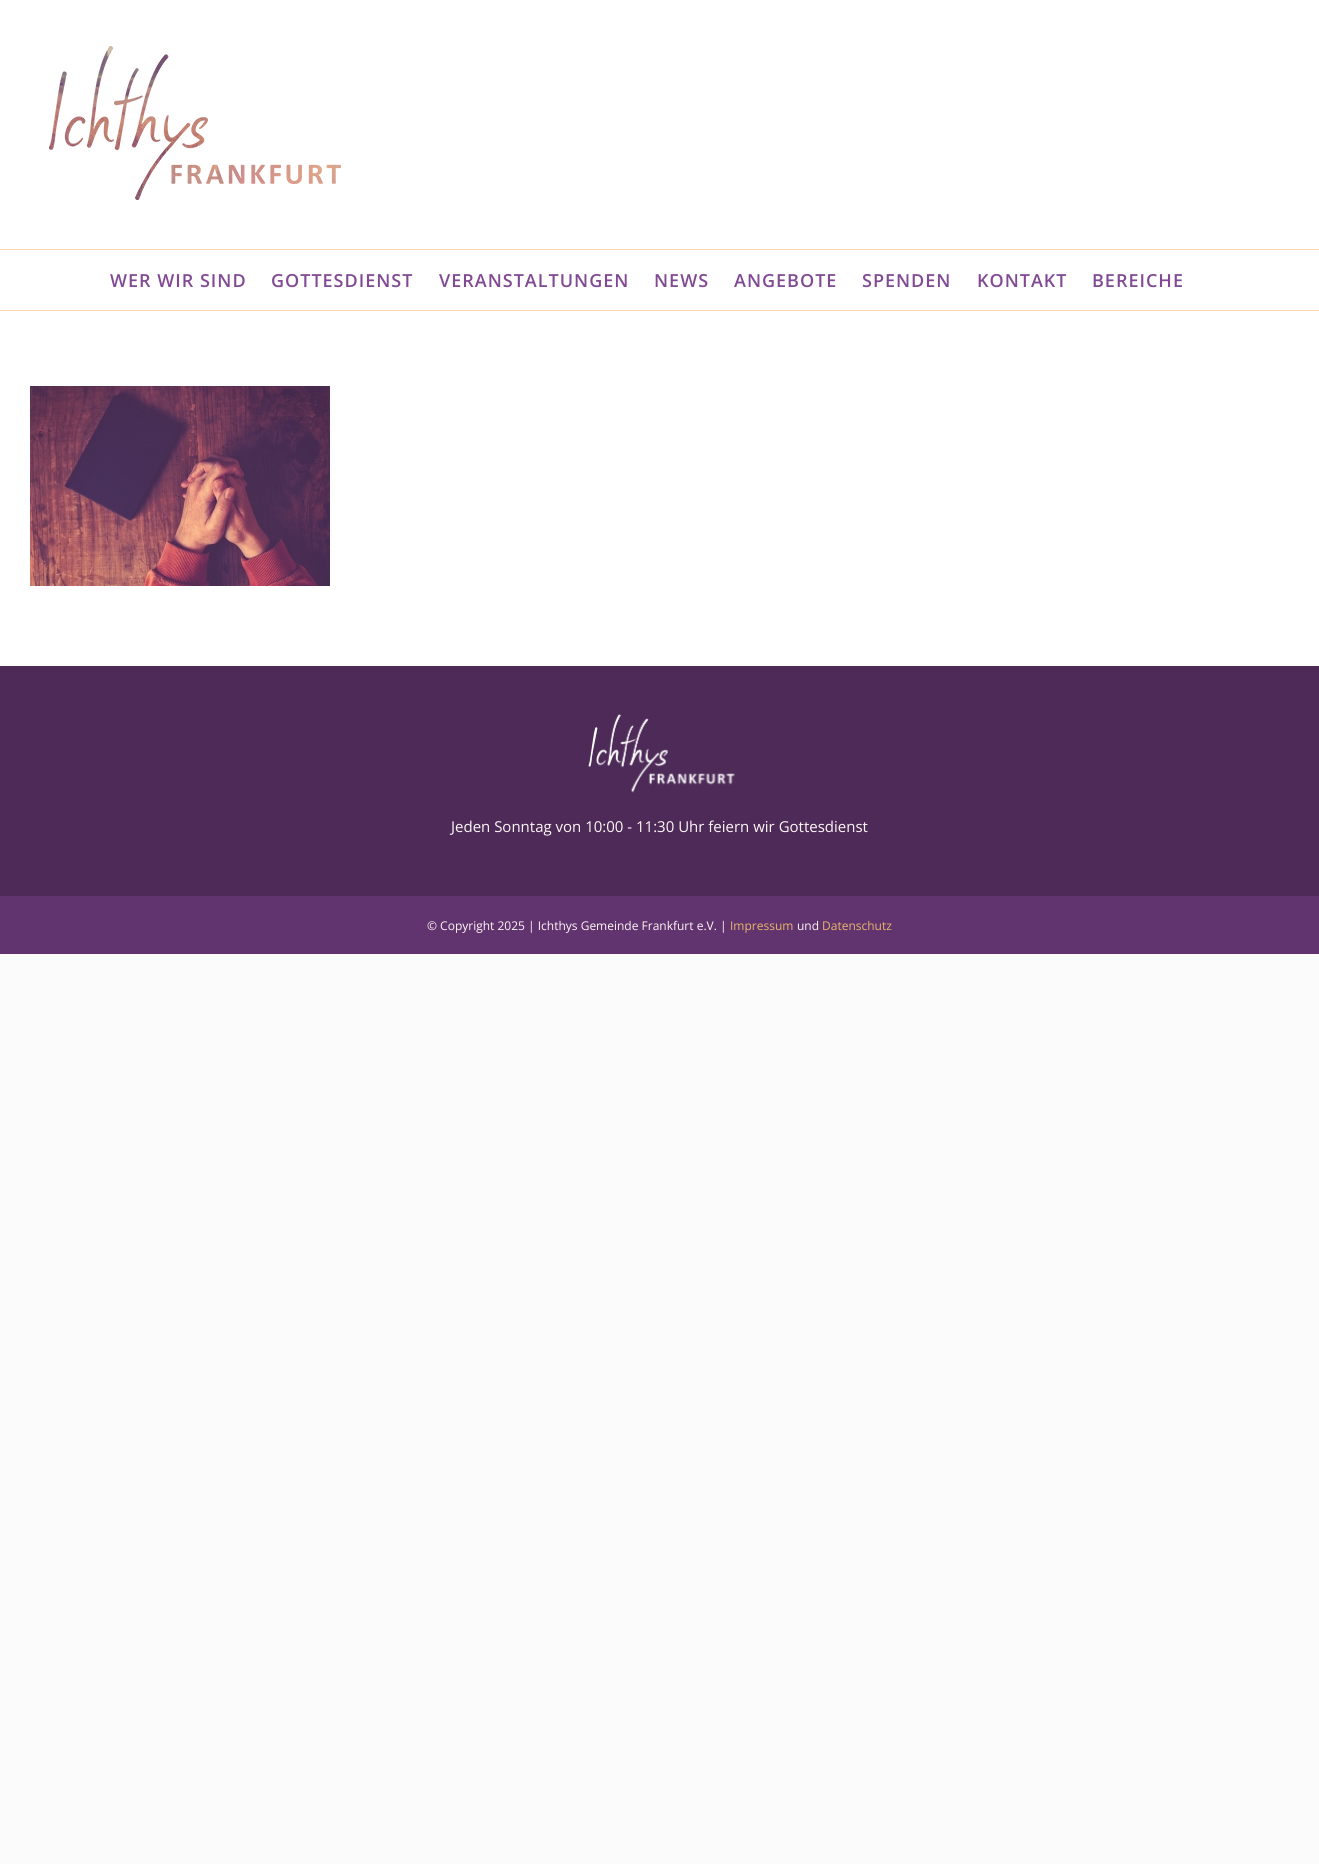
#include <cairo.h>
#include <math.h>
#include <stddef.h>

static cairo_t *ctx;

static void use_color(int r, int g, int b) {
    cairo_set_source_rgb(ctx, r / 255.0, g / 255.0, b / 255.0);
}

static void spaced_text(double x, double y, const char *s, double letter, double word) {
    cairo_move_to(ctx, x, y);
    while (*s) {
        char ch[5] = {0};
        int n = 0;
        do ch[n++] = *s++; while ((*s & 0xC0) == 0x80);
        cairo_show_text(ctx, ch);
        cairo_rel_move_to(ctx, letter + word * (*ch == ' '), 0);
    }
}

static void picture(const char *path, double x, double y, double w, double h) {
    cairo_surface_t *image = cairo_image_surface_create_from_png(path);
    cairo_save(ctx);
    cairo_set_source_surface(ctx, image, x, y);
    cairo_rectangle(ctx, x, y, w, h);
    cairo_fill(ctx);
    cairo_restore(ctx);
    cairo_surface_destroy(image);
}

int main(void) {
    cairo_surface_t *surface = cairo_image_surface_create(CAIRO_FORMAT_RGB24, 1319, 1864);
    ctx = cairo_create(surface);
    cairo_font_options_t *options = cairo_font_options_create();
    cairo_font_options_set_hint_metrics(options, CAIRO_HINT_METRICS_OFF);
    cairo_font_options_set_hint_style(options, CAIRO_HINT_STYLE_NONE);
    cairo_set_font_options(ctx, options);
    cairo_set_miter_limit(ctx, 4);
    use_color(251, 251, 251);
    cairo_paint(ctx);
    use_color(255, 255, 255);
    cairo_rectangle(ctx, 0, 0, 1319, 249);
    cairo_fill(ctx);
    use_color(251, 216, 175);
    cairo_rectangle(ctx, 0, 249, 1319, 1);
    cairo_fill(ctx);
    picture("img1.png", 49, 46, 292, 154);
    use_color(255, 255, 255);
    cairo_rectangle(ctx, 0, 250, 1319, 60);
    cairo_fill(ctx);
    use_color(251, 216, 175);
    cairo_rectangle(ctx, 0, 310, 1319, 1);
    cairo_fill(ctx);
    cairo_select_font_face(ctx, "Open Sans SemiBold", CAIRO_FONT_SLANT_NORMAL, CAIRO_FONT_WEIGHT_NORMAL);
    cairo_set_font_size(ctx, 18);
    use_color(130, 74, 148);
    spaced_text(110, 287, "WER WIR SIND", 1, 0);
    spaced_text(271, 287, "GOTTESDIENST", 1, 0);
    spaced_text(439, 287, "VERANSTALTUNGEN", 1, 0);
    spaced_text(654, 287, "NEWS", 1, 0);
    spaced_text(734, 287, "ANGEBOTE", 1, 0);
    spaced_text(862, 287, "SPENDEN", 1, 0);
    spaced_text(977, 287, "KONTAKT", 1, 0);
    spaced_text(1092, 287, "BEREICHE", 1, 0);
    use_color(255, 255, 255);
    cairo_rectangle(ctx, 0, 311, 1319, 355);
    cairo_fill(ctx);
    picture("img2.png", 30, 386, 300, 200);
    use_color(77, 42, 87);
    cairo_rectangle(ctx, 0, 666, 1319, 230);
    cairo_fill(ctx);
    picture("img3.png", 588, 714, 147, 79);
    cairo_select_font_face(ctx, "Open Sans", CAIRO_FONT_SLANT_NORMAL, CAIRO_FONT_WEIGHT_NORMAL);
    cairo_set_font_size(ctx, 15);
    use_color(255, 247, 247);
    cairo_move_to(ctx, 451, 832);
    cairo_show_text(ctx, "Jeden Sonntag von 10:00 - 11:30 Uhr feiern wir Gottesdienst");
    use_color(98, 52, 111);
    cairo_rectangle(ctx, 0, 896, 1319, 58);
    cairo_fill(ctx);
    cairo_set_font_size(ctx, 12);
    use_color(255, 247, 247);
    cairo_move_to(ctx, 427, 930);
    cairo_show_text(ctx, "© Copyright 2025 | Ichthys Gemeinde Frankfurt e.V. |");
    use_color(232, 182, 107);
    cairo_move_to(ctx, 730, 930);
    cairo_show_text(ctx, "Impressum");
    use_color(255, 247, 247);
    cairo_move_to(ctx, 797, 930);
    cairo_show_text(ctx, "und");
    use_color(232, 182, 107);
    cairo_move_to(ctx, 822, 930);
    cairo_show_text(ctx, "Datenschutz");
    cairo_surface_write_to_png(surface, "result.png");
    cairo_font_options_destroy(options);
    cairo_destroy(ctx);
    cairo_surface_destroy(surface);
    return 0;
}
